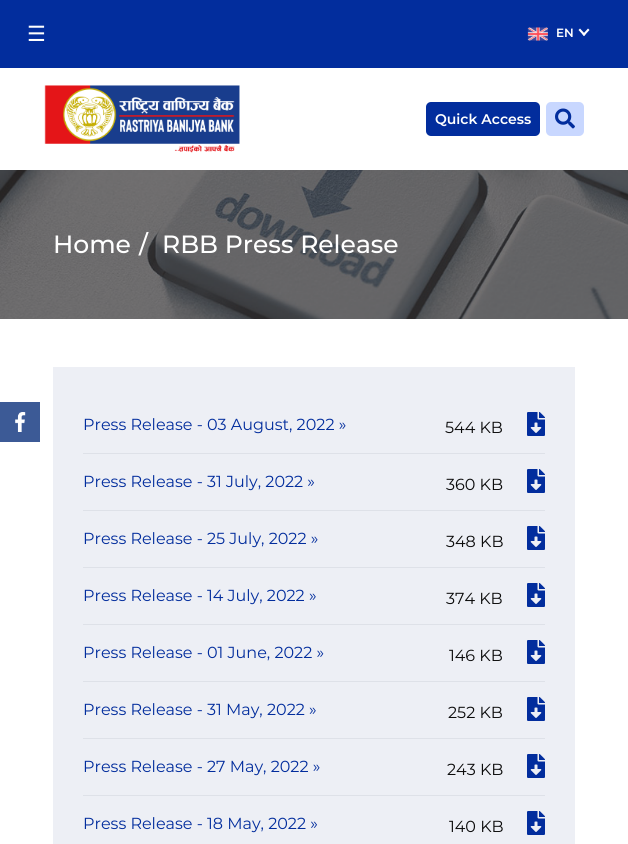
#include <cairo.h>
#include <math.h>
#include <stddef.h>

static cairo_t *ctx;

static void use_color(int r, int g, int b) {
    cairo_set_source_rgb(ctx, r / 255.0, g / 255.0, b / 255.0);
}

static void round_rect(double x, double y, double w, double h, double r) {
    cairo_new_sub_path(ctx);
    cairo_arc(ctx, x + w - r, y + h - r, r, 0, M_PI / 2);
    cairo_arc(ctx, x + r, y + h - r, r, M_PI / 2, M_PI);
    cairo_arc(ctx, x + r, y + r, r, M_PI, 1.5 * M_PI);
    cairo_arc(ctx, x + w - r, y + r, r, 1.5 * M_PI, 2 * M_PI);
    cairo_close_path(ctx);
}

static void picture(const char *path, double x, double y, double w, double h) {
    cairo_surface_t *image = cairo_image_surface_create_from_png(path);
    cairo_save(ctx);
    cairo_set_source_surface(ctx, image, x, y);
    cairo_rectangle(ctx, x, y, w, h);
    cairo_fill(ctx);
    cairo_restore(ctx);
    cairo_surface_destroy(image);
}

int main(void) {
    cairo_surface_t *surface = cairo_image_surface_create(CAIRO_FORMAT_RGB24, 628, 844);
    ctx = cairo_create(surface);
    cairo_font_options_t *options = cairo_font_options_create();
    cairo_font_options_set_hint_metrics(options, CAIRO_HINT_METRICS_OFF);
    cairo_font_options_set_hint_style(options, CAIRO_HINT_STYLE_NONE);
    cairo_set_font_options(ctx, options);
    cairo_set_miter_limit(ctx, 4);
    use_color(255, 255, 255);
    cairo_paint(ctx);
    use_color(2, 45, 157);
    cairo_rectangle(ctx, 0, 0, 628, 68);
    cairo_fill(ctx);
    cairo_select_font_face(ctx, "DejaVu Sans", CAIRO_FONT_SLANT_NORMAL, CAIRO_FONT_WEIGHT_NORMAL);
    cairo_set_font_size(ctx, 21);
    use_color(255, 255, 255);
    cairo_move_to(ctx, 27, 41);
    cairo_show_text(ctx, "☰");
    picture("img1.png", 527, 27, 21, 14);
    cairo_select_font_face(ctx, "Montserrat SemiBold", CAIRO_FONT_SLANT_NORMAL, CAIRO_FONT_WEIGHT_NORMAL);
    cairo_set_font_size(ctx, 12);
    cairo_move_to(ctx, 556, 37);
    cairo_show_text(ctx, "EN");
    cairo_new_path(ctx);
    cairo_move_to(ctx, 588, 28.5);
    cairo_line_to(ctx, 589.5, 30);
    cairo_line_to(ctx, 584, 36);
    cairo_line_to(ctx, 582.5, 34.5);
    cairo_close_path(ctx);
    cairo_fill(ctx);
    cairo_new_path(ctx);
    cairo_move_to(ctx, 580, 28.5);
    cairo_line_to(ctx, 585.5, 34.5);
    cairo_line_to(ctx, 584, 36);
    cairo_line_to(ctx, 578.5, 30);
    cairo_close_path(ctx);
    cairo_fill(ctx);
    picture("img2.png", 44, 85, 196, 68);
    use_color(2, 45, 157);
    round_rect(426, 102, 114, 34, 5);
    cairo_fill(ctx);
    cairo_set_font_size(ctx, 14);
    use_color(255, 255, 255);
    cairo_move_to(ctx, 435, 124);
    cairo_show_text(ctx, "Quick Access");
    use_color(200, 215, 255);
    round_rect(546, 102, 38, 34, 5);
    cairo_fill(ctx);
    picture("img3.png", 555, 108, 20, 21);
    picture("img4.png", 0, 170, 628, 149);
    cairo_select_font_face(ctx, "Montserrat Medium", CAIRO_FONT_SLANT_NORMAL, CAIRO_FONT_WEIGHT_NORMAL);
    cairo_set_font_size(ctx, 25);
    use_color(255, 255, 255);
    cairo_move_to(ctx, 53, 253);
    cairo_show_text(ctx, "Home");
    cairo_move_to(ctx, 139, 253);
    cairo_show_text(ctx, "/");
    cairo_move_to(ctx, 162, 253);
    cairo_show_text(ctx, "RBB Press Release");
    use_color(60, 90, 150);
    cairo_rectangle(ctx, 0, 402, 40, 40);
    cairo_fill(ctx);
    picture("img5.png", 15, 412, 11, 20);
    use_color(237, 239, 245);
    cairo_rectangle(ctx, 53, 367, 522, 477);
    cairo_fill(ctx);
    use_color(222, 225, 232);
    cairo_rectangle(ctx, 83, 453, 462, 1);
    cairo_fill(ctx);
    cairo_select_font_face(ctx, "Montserrat", CAIRO_FONT_SLANT_NORMAL, CAIRO_FONT_WEIGHT_NORMAL);
    cairo_set_font_size(ctx, 16);
    use_color(2, 45, 157);
    cairo_move_to(ctx, 83, 430);
    cairo_show_text(ctx, "Press Release - 03 August, 2022 »");
    use_color(11, 11, 11);
    cairo_move_to(ctx, 445, 433);
    cairo_show_text(ctx, "544 KB");
    picture("img6.png", 527, 412, 18, 24);
    use_color(222, 225, 232);
    cairo_rectangle(ctx, 83, 510, 462, 1);
    cairo_fill(ctx);
    use_color(2, 45, 157);
    cairo_move_to(ctx, 83, 487);
    cairo_show_text(ctx, "Press Release - 31 July, 2022 »");
    use_color(11, 11, 11);
    cairo_move_to(ctx, 446, 490);
    cairo_show_text(ctx, "360 KB");
    picture("img6.png", 527, 469, 18, 24);
    use_color(222, 225, 232);
    cairo_rectangle(ctx, 83, 567, 462, 1);
    cairo_fill(ctx);
    use_color(2, 45, 157);
    cairo_move_to(ctx, 83, 544);
    cairo_show_text(ctx, "Press Release - 25 July, 2022 »");
    use_color(11, 11, 11);
    cairo_move_to(ctx, 446, 547);
    cairo_show_text(ctx, "348 KB");
    picture("img6.png", 527, 526, 18, 24);
    use_color(222, 225, 232);
    cairo_rectangle(ctx, 83, 624, 462, 1);
    cairo_fill(ctx);
    use_color(2, 45, 157);
    cairo_move_to(ctx, 83, 601);
    cairo_show_text(ctx, "Press Release - 14 July, 2022 »");
    use_color(11, 11, 11);
    cairo_move_to(ctx, 446, 604);
    cairo_show_text(ctx, "374 KB");
    picture("img6.png", 527, 583, 18, 24);
    use_color(222, 225, 232);
    cairo_rectangle(ctx, 83, 681, 462, 1);
    cairo_fill(ctx);
    use_color(2, 45, 157);
    cairo_move_to(ctx, 83, 658);
    cairo_show_text(ctx, "Press Release - 01 June, 2022 »");
    use_color(11, 11, 11);
    cairo_move_to(ctx, 449, 661);
    cairo_show_text(ctx, "146 KB");
    picture("img6.png", 527, 640, 18, 24);
    use_color(222, 225, 232);
    cairo_rectangle(ctx, 83, 738, 462, 1);
    cairo_fill(ctx);
    use_color(2, 45, 157);
    cairo_move_to(ctx, 83, 715);
    cairo_show_text(ctx, "Press Release - 31 May, 2022 »");
    use_color(11, 11, 11);
    cairo_move_to(ctx, 448, 718);
    cairo_show_text(ctx, "252 KB");
    picture("img6.png", 527, 697, 18, 24);
    use_color(222, 225, 232);
    cairo_rectangle(ctx, 83, 795, 462, 1);
    cairo_fill(ctx);
    use_color(2, 45, 157);
    cairo_move_to(ctx, 83, 772);
    cairo_show_text(ctx, "Press Release - 27 May, 2022 »");
    use_color(11, 11, 11);
    cairo_move_to(ctx, 447, 775);
    cairo_show_text(ctx, "243 KB");
    picture("img6.png", 527, 754, 18, 24);
    use_color(2, 45, 157);
    cairo_move_to(ctx, 83, 829);
    cairo_show_text(ctx, "Press Release - 18 May, 2022 »");
    use_color(11, 11, 11);
    cairo_move_to(ctx, 449, 832);
    cairo_show_text(ctx, "140 KB");
    picture("img6.png", 527, 811, 18, 24);
    cairo_surface_write_to_png(surface, "result.png");
    cairo_font_options_destroy(options);
    cairo_destroy(ctx);
    cairo_surface_destroy(surface);
    return 0;
}
